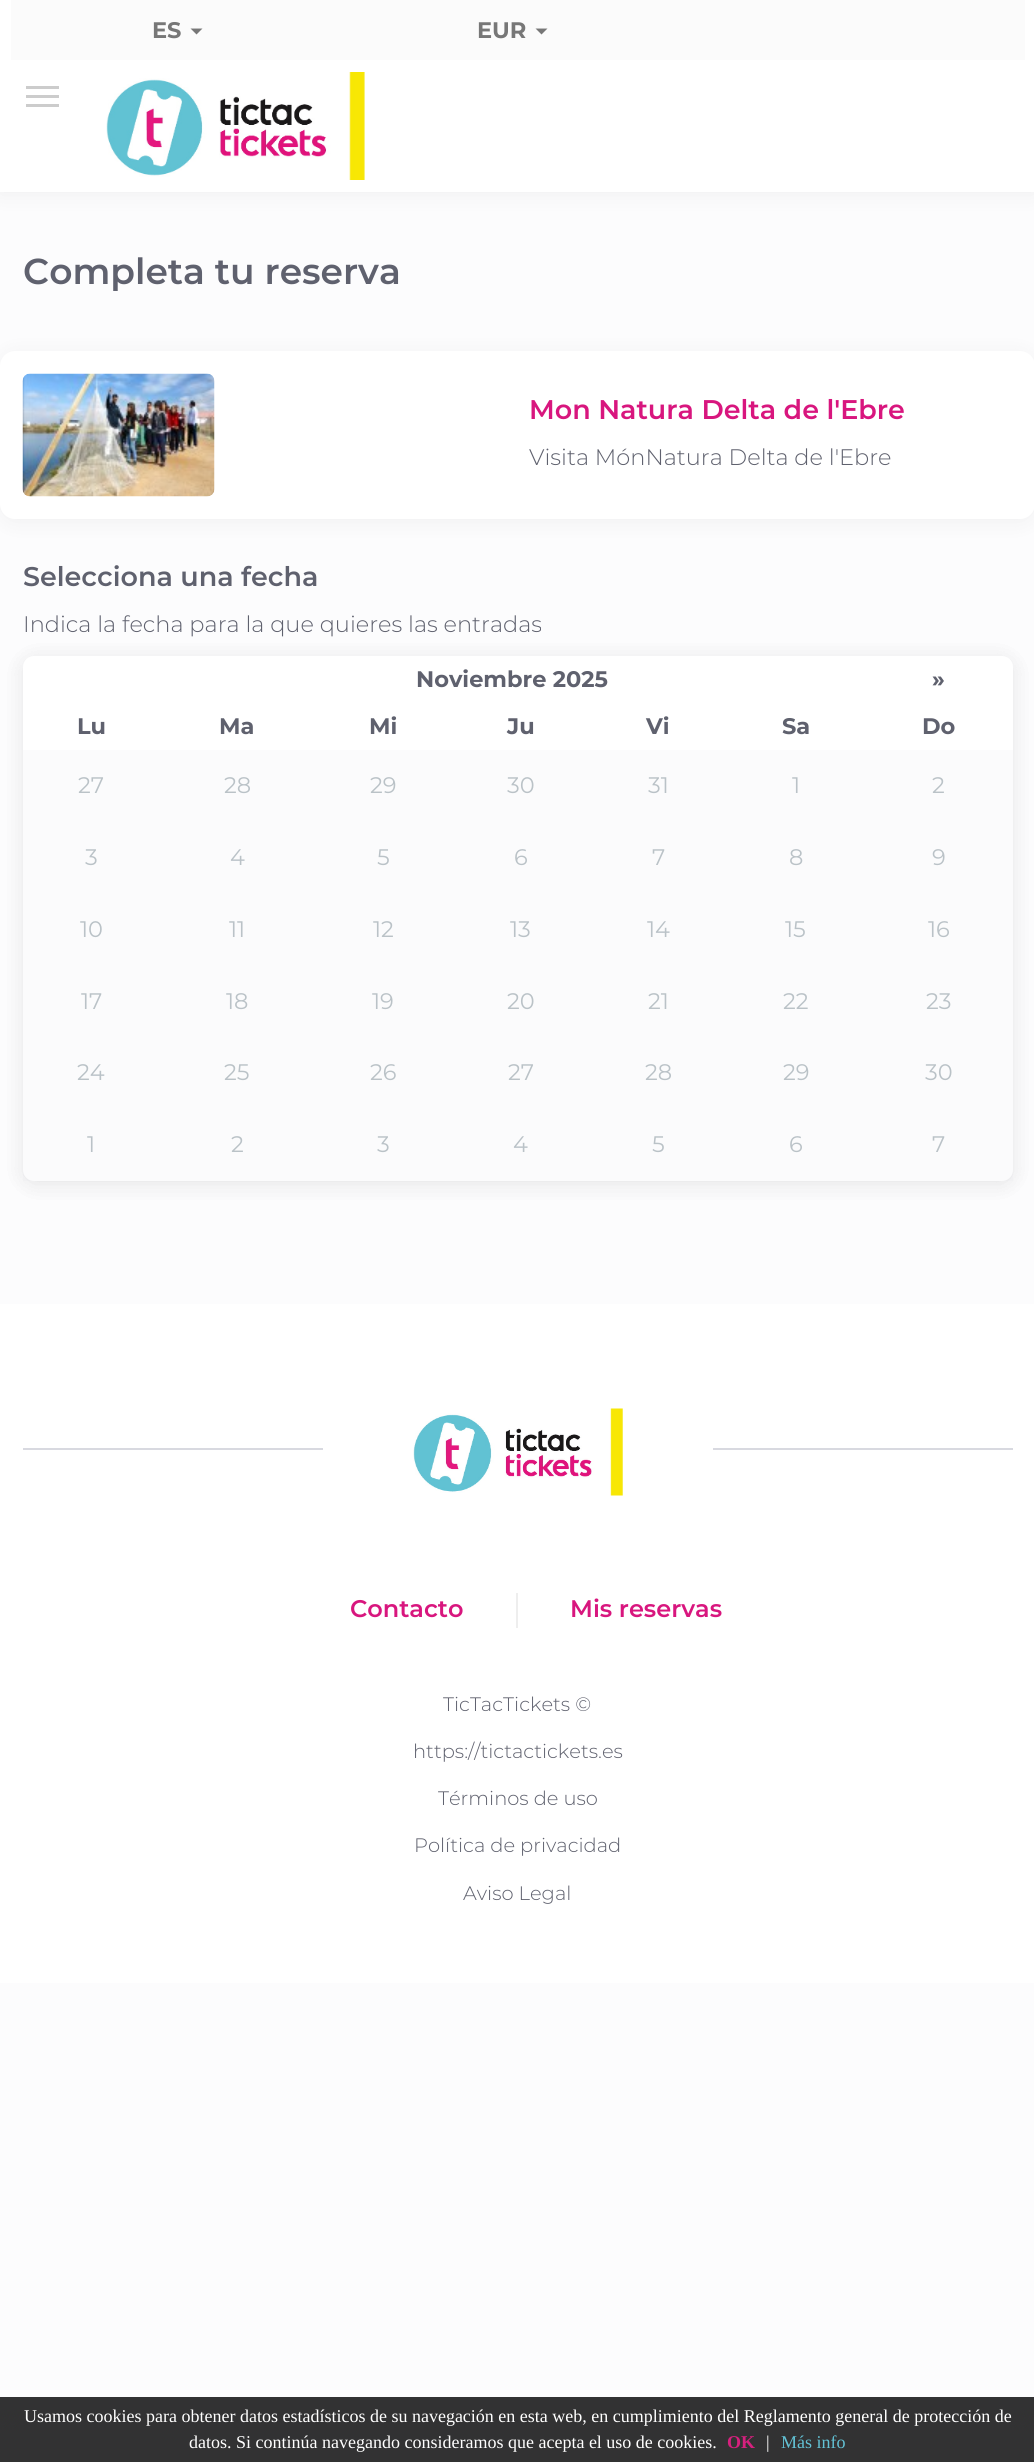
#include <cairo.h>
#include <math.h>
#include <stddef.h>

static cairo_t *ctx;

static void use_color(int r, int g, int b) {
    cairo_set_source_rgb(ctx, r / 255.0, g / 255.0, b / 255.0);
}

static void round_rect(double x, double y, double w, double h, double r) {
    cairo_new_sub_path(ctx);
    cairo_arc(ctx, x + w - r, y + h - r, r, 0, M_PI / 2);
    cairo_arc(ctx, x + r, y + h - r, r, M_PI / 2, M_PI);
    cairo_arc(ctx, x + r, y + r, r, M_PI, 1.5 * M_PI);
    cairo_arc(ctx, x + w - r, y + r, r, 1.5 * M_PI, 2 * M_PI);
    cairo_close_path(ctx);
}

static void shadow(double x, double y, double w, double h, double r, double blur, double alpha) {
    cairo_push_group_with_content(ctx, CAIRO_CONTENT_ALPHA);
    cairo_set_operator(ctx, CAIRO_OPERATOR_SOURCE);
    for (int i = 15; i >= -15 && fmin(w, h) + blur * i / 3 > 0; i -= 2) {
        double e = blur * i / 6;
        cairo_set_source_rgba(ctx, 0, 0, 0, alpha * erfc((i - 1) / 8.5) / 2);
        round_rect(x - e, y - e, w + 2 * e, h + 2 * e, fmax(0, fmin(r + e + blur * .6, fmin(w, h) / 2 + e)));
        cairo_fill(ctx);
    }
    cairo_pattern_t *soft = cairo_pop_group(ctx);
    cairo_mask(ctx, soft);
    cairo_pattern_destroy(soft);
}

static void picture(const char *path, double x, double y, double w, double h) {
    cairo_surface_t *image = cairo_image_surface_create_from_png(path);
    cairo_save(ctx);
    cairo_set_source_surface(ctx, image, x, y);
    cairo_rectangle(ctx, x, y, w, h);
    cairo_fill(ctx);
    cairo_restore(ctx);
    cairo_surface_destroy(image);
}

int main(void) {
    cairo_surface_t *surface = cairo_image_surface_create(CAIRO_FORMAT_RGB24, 1034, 2462);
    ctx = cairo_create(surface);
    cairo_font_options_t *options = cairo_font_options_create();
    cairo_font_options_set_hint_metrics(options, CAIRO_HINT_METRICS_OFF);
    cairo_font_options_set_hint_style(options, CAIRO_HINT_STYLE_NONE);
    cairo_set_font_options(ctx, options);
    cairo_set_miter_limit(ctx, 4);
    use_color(252, 252, 253);
    cairo_paint(ctx);
    use_color(0, 0, 0);
    shadow(0, 3, 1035, 192, 0, 10.5, 0.05);
    use_color(255, 255, 255);
    cairo_rectangle(ctx, 0, 0, 1034, 192);
    cairo_fill(ctx);
    use_color(251, 251, 251);
    cairo_rectangle(ctx, 11, 0, 1014, 60);
    cairo_fill(ctx);
    cairo_select_font_face(ctx, "Montserrat", CAIRO_FONT_SLANT_NORMAL, CAIRO_FONT_WEIGHT_BOLD);
    cairo_set_font_size(ctx, 22.5);
    use_color(119, 119, 119);
    cairo_move_to(ctx, 152, 38);
    cairo_show_text(ctx, "ES");
    cairo_new_path(ctx);
    cairo_move_to(ctx, 190.5, 28.5);
    cairo_line_to(ctx, 202.5, 28.5);
    cairo_line_to(ctx, 196.5, 34.5);
    cairo_close_path(ctx);
    cairo_fill(ctx);
    cairo_move_to(ctx, 477, 38);
    cairo_show_text(ctx, "EUR");
    cairo_new_path(ctx);
    cairo_move_to(ctx, 535.5, 28.5);
    cairo_line_to(ctx, 547.5, 28.5);
    cairo_line_to(ctx, 541.5, 34.5);
    cairo_close_path(ctx);
    cairo_fill(ctx);
    use_color(204, 204, 204);
    cairo_rectangle(ctx, 26, 86, 33, 3);
    cairo_fill(ctx);
    cairo_rectangle(ctx, 26, 95, 33, 3);
    cairo_fill(ctx);
    cairo_rectangle(ctx, 26, 104, 33, 3);
    cairo_fill(ctx);
    picture("img1.png", 106, 72, 259, 108);
    cairo_select_font_face(ctx, "Montserrat SemiBold", CAIRO_FONT_SLANT_NORMAL, CAIRO_FONT_WEIGHT_NORMAL);
    cairo_set_font_size(ctx, 36);
    use_color(95, 97, 110);
    cairo_move_to(ctx, 23, 284);
    cairo_show_text(ctx, "Completa tu reserva");
    use_color(0, 0, 0);
    shadow(0, 354, 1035, 168, 15, 10.5, 0.05);
    use_color(255, 255, 255);
    round_rect(0, 351, 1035, 168, 15);
    cairo_fill(ctx);
    picture("img2.png", 22, 373, 193, 124);
    cairo_set_font_size(ctx, 27);
    use_color(216, 22, 126);
    cairo_move_to(ctx, 529, 419);
    cairo_show_text(ctx, "Mon Natura Delta de l'Ebre");
    cairo_select_font_face(ctx, "Montserrat Light", CAIRO_FONT_SLANT_NORMAL, CAIRO_FONT_WEIGHT_NORMAL);
    cairo_set_font_size(ctx, 22.5);
    use_color(95, 97, 110);
    cairo_move_to(ctx, 529, 465);
    cairo_show_text(ctx, "Visita MónNatura Delta de l'Ebre");
    cairo_select_font_face(ctx, "Montserrat SemiBold", CAIRO_FONT_SLANT_NORMAL, CAIRO_FONT_WEIGHT_NORMAL);
    cairo_set_font_size(ctx, 27);
    cairo_move_to(ctx, 23, 586);
    cairo_show_text(ctx, "Selecciona una fecha");
    use_color(0, 0, 0);
    shadow(23, 659, 990, 525, 11, 10.5, 0.05);
    shadow(23, 659, 990, 525, 11, 10.5, 0.05);
    cairo_select_font_face(ctx, "Montserrat Light", CAIRO_FONT_SLANT_NORMAL, CAIRO_FONT_WEIGHT_NORMAL);
    cairo_set_font_size(ctx, 22.5);
    use_color(95, 97, 110);
    cairo_move_to(ctx, 23, 632);
    cairo_show_text(ctx, "Indica la fecha para la que quieres las entradas");
    use_color(255, 255, 255);
    round_rect(23, 656, 990, 525, 11);
    cairo_fill(ctx);
    cairo_select_font_face(ctx, "Montserrat", CAIRO_FONT_SLANT_NORMAL, CAIRO_FONT_WEIGHT_BOLD);
    use_color(95, 97, 110);
    cairo_move_to(ctx, 416, 687);
    cairo_show_text(ctx, "Noviembre 2025");
    cairo_move_to(ctx, 932, 687);
    cairo_show_text(ctx, "»");
    cairo_move_to(ctx, 77, 734);
    cairo_show_text(ctx, "Lu");
    cairo_move_to(ctx, 219, 734);
    cairo_show_text(ctx, "Ma");
    cairo_move_to(ctx, 369, 734);
    cairo_show_text(ctx, "Mi");
    cairo_move_to(ctx, 507, 734);
    cairo_show_text(ctx, "Ju");
    cairo_move_to(ctx, 646, 734);
    cairo_show_text(ctx, "Vi");
    cairo_move_to(ctx, 782, 734);
    cairo_show_text(ctx, "Sa");
    cairo_move_to(ctx, 922, 734);
    cairo_show_text(ctx, "Do");
    use_color(251, 251, 252);
    cairo_rectangle(ctx, 23, 750, 990, 72);
    cairo_fill(ctx);
    cairo_select_font_face(ctx, "Montserrat", CAIRO_FONT_SLANT_NORMAL, CAIRO_FONT_WEIGHT_NORMAL);
    use_color(186, 194, 199);
    cairo_move_to(ctx, 78, 793);
    cairo_show_text(ctx, "27");
    cairo_move_to(ctx, 224, 793);
    cairo_show_text(ctx, "28");
    cairo_move_to(ctx, 370, 793);
    cairo_show_text(ctx, "29");
    cairo_move_to(ctx, 507, 793);
    cairo_show_text(ctx, "30");
    cairo_move_to(ctx, 648, 793);
    cairo_show_text(ctx, "31");
    cairo_move_to(ctx, 792, 793);
    cairo_show_text(ctx, "1");
    cairo_move_to(ctx, 932, 793);
    cairo_show_text(ctx, "2");
    use_color(251, 251, 252);
    cairo_rectangle(ctx, 23, 822, 990, 71);
    cairo_fill(ctx);
    use_color(186, 194, 199);
    cairo_move_to(ctx, 85, 865);
    cairo_show_text(ctx, "3");
    cairo_move_to(ctx, 230, 865);
    cairo_show_text(ctx, "4");
    cairo_move_to(ctx, 377, 865);
    cairo_show_text(ctx, "5");
    cairo_move_to(ctx, 514, 865);
    cairo_show_text(ctx, "6");
    cairo_move_to(ctx, 652, 865);
    cairo_show_text(ctx, "7");
    cairo_move_to(ctx, 789, 865);
    cairo_show_text(ctx, "8");
    cairo_move_to(ctx, 932, 865);
    cairo_show_text(ctx, "9");
    use_color(251, 251, 252);
    cairo_rectangle(ctx, 23, 893, 990, 72);
    cairo_fill(ctx);
    use_color(186, 194, 199);
    cairo_move_to(ctx, 80, 937);
    cairo_show_text(ctx, "10");
    cairo_move_to(ctx, 229, 937);
    cairo_show_text(ctx, "11");
    cairo_move_to(ctx, 373, 937);
    cairo_show_text(ctx, "12");
    cairo_move_to(ctx, 510, 937);
    cairo_show_text(ctx, "13");
    cairo_move_to(ctx, 647, 937);
    cairo_show_text(ctx, "14");
    cairo_move_to(ctx, 785, 937);
    cairo_show_text(ctx, "15");
    cairo_move_to(ctx, 928, 937);
    cairo_show_text(ctx, "16");
    use_color(251, 251, 252);
    cairo_rectangle(ctx, 23, 965, 990, 72);
    cairo_fill(ctx);
    use_color(186, 194, 199);
    cairo_move_to(ctx, 81, 1009);
    cairo_show_text(ctx, "17");
    cairo_move_to(ctx, 226, 1009);
    cairo_show_text(ctx, "18");
    cairo_move_to(ctx, 372, 1009);
    cairo_show_text(ctx, "19");
    cairo_move_to(ctx, 507, 1009);
    cairo_show_text(ctx, "20");
    cairo_move_to(ctx, 648, 1009);
    cairo_show_text(ctx, "21");
    cairo_move_to(ctx, 783, 1009);
    cairo_show_text(ctx, "22");
    cairo_move_to(ctx, 926, 1009);
    cairo_show_text(ctx, "23");
    use_color(251, 251, 252);
    cairo_rectangle(ctx, 23, 1037, 990, 72);
    cairo_fill(ctx);
    use_color(186, 194, 199);
    cairo_move_to(ctx, 77, 1080);
    cairo_show_text(ctx, "24");
    cairo_move_to(ctx, 224, 1080);
    cairo_show_text(ctx, "25");
    cairo_move_to(ctx, 370, 1080);
    cairo_show_text(ctx, "26");
    cairo_move_to(ctx, 508, 1080);
    cairo_show_text(ctx, "27");
    cairo_move_to(ctx, 645, 1080);
    cairo_show_text(ctx, "28");
    cairo_move_to(ctx, 783, 1080);
    cairo_show_text(ctx, "29");
    cairo_move_to(ctx, 925, 1080);
    cairo_show_text(ctx, "30");
    cairo_set_source_rgba(ctx, 0.847, 0.851, 0.878, 0.1);
    cairo_rectangle(ctx, 23, 1109, 138, 72);
    cairo_fill(ctx);
    use_color(186, 194, 199);
    cairo_move_to(ctx, 87, 1152);
    cairo_show_text(ctx, "1");
    use_color(251, 251, 252);
    cairo_rectangle(ctx, 161, 1109, 703, 72);
    cairo_fill(ctx);
    use_color(186, 194, 199);
    cairo_move_to(ctx, 231, 1152);
    cairo_show_text(ctx, "2");
    cairo_move_to(ctx, 377, 1152);
    cairo_show_text(ctx, "3");
    cairo_move_to(ctx, 513, 1152);
    cairo_show_text(ctx, "4");
    cairo_move_to(ctx, 652, 1152);
    cairo_show_text(ctx, "5");
    cairo_move_to(ctx, 789, 1152);
    cairo_show_text(ctx, "6");
    cairo_set_source_rgba(ctx, 0.847, 0.851, 0.878, 0.1);
    cairo_rectangle(ctx, 864, 1109, 149, 72);
    cairo_fill(ctx);
    use_color(186, 194, 199);
    cairo_move_to(ctx, 932, 1152);
    cairo_show_text(ctx, "7");
    use_color(255, 255, 255);
    cairo_rectangle(ctx, 0, 1304, 1034, 679);
    cairo_fill(ctx);
    use_color(216, 217, 224);
    cairo_rectangle(ctx, 23, 1448, 300, 2);
    cairo_fill(ctx);
    picture("img3.png", 413, 1408, 210, 88);
    cairo_rectangle(ctx, 713, 1448, 300, 2);
    cairo_fill(ctx);
    use_color(238, 238, 238);
    cairo_rectangle(ctx, 516, 1593, 2, 35);
    cairo_fill(ctx);
    cairo_select_font_face(ctx, "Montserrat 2 SemiBold", CAIRO_FONT_SLANT_NORMAL, CAIRO_FONT_WEIGHT_NORMAL);
    cairo_set_font_size(ctx, 24);
    use_color(216, 22, 126);
    cairo_move_to(ctx, 350, 1617);
    cairo_show_text(ctx, "Contacto");
    cairo_move_to(ctx, 570, 1617);
    cairo_show_text(ctx, "Mis reservas");
    cairo_select_font_face(ctx, "Montserrat Light", CAIRO_FONT_SLANT_NORMAL, CAIRO_FONT_WEIGHT_NORMAL);
    cairo_set_font_size(ctx, 19.5);
    use_color(95, 97, 110);
    cairo_move_to(ctx, 443, 1711);
    cairo_show_text(ctx, "TicTacTickets ©");
    cairo_move_to(ctx, 413, 1758);
    cairo_show_text(ctx, "https://tictactickets.es");
    cairo_move_to(ctx, 438, 1805);
    cairo_show_text(ctx, "Términos de uso");
    cairo_move_to(ctx, 414, 1852);
    cairo_show_text(ctx, "Política de privacidad");
    cairo_move_to(ctx, 463, 1900);
    cairo_show_text(ctx, "Aviso Legal");
    use_color(50, 50, 51);
    cairo_rectangle(ctx, 0, 2397, 1034, 65);
    cairo_fill(ctx);
    cairo_select_font_face(ctx, "Liberation Serif", CAIRO_FONT_SLANT_NORMAL, CAIRO_FONT_WEIGHT_NORMAL);
    cairo_set_font_size(ctx, 18);
    use_color(255, 255, 255);
    cairo_move_to(ctx, 24, 2422);
    cairo_show_text(ctx, "Usamos cookies para obtener datos estadísticos de su navegación en esta web, en cumplimiento del Reglamento general de protección de");
    cairo_move_to(ctx, 189, 2448);
    cairo_show_text(ctx, "datos. Si continúa navegando consideramos que acepta el uso de cookies.");
    cairo_select_font_face(ctx, "Liberation Serif", CAIRO_FONT_SLANT_NORMAL, CAIRO_FONT_WEIGHT_BOLD);
    use_color(214, 32, 126);
    cairo_move_to(ctx, 727, 2448);
    cairo_show_text(ctx, "OK");
    cairo_select_font_face(ctx, "Liberation Serif", CAIRO_FONT_SLANT_NORMAL, CAIRO_FONT_WEIGHT_NORMAL);
    use_color(255, 255, 255);
    cairo_move_to(ctx, 766, 2448);
    cairo_show_text(ctx, "|");
    use_color(98, 194, 213);
    cairo_move_to(ctx, 781, 2448);
    cairo_show_text(ctx, "Más info");
    cairo_surface_write_to_png(surface, "result.png");
    cairo_font_options_destroy(options);
    cairo_destroy(ctx);
    cairo_surface_destroy(surface);
    return 0;
}
